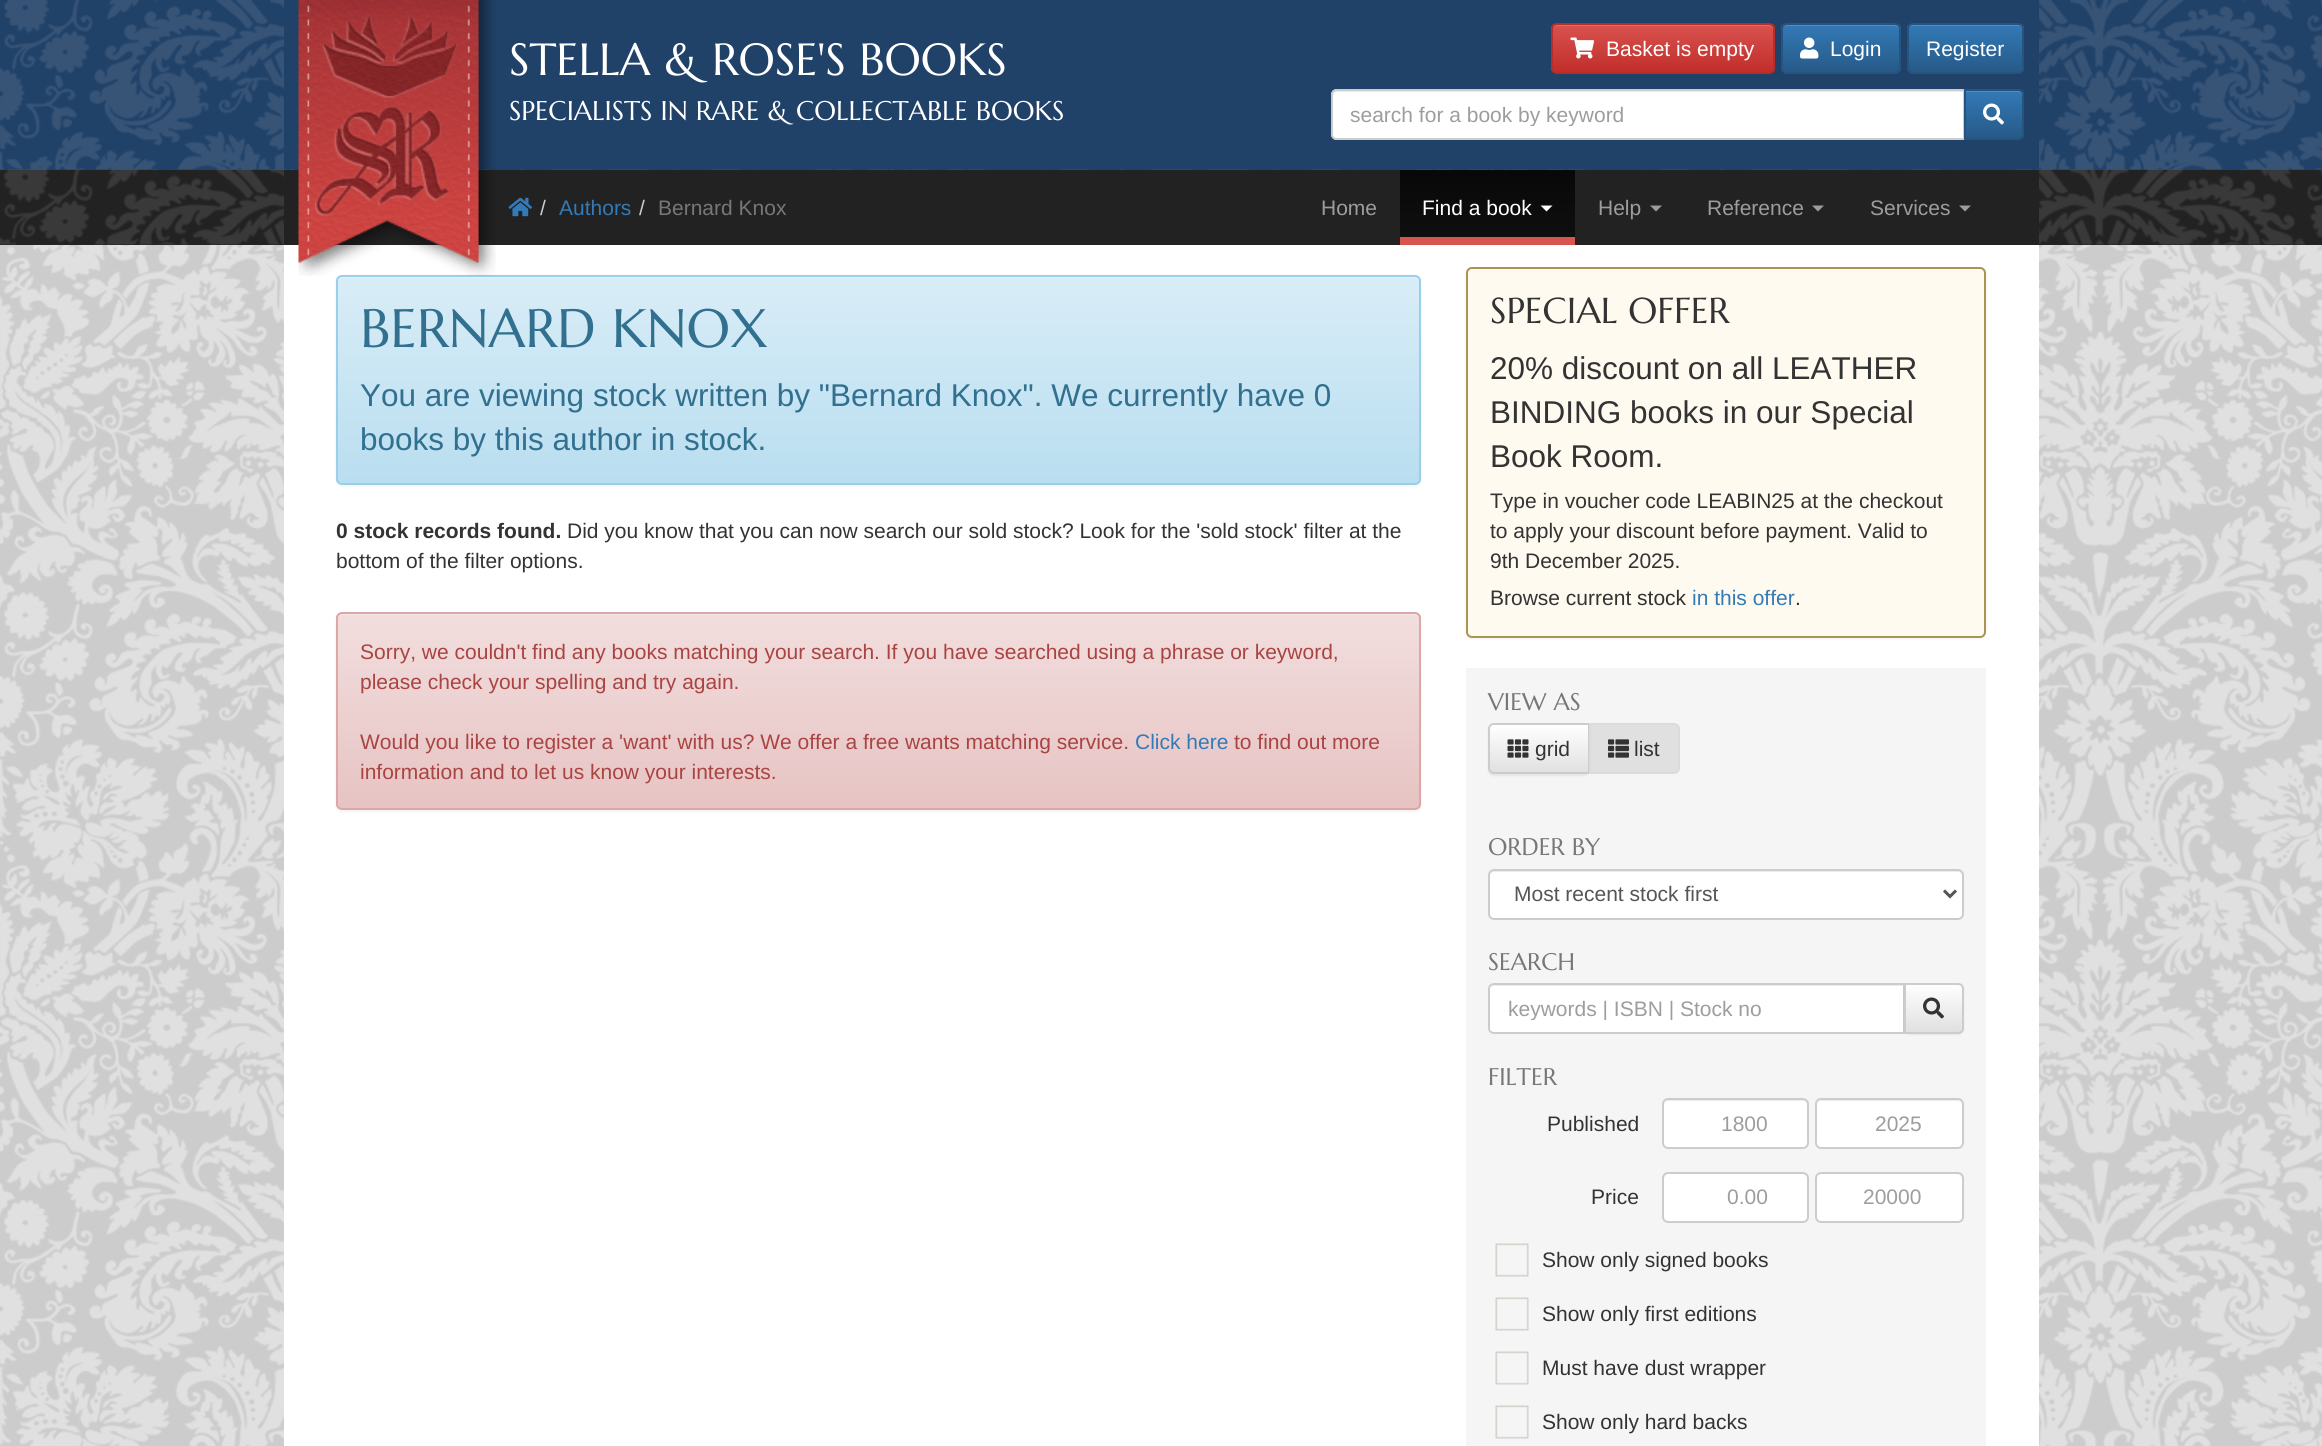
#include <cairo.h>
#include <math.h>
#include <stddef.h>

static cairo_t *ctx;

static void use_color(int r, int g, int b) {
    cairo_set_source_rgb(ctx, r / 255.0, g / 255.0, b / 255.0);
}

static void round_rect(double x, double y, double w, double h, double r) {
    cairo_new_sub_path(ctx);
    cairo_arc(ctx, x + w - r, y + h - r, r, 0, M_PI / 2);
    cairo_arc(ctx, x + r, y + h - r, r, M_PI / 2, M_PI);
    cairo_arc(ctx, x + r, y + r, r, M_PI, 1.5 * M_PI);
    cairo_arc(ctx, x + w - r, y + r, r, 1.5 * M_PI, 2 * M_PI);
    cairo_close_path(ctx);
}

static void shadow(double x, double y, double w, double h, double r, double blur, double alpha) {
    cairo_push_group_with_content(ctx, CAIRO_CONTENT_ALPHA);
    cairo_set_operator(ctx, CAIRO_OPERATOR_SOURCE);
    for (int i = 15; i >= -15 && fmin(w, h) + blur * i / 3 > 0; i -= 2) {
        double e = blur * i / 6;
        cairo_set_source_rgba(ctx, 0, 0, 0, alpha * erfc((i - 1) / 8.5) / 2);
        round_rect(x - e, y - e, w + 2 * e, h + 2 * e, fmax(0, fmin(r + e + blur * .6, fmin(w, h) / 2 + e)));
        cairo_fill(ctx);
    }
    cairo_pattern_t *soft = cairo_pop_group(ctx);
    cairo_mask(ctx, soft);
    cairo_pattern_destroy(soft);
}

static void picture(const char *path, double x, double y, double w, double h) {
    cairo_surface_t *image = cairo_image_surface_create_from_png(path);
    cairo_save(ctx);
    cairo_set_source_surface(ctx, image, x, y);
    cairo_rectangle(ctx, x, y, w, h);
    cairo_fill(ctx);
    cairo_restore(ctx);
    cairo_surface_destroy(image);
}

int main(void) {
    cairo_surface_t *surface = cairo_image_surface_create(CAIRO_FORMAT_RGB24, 2322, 1446);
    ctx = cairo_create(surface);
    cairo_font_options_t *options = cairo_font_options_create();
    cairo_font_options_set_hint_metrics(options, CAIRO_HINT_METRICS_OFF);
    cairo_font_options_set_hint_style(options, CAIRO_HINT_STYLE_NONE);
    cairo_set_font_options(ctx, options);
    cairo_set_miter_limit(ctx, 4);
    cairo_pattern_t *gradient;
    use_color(204, 204, 204);
    cairo_paint(ctx);
    picture("img1.png", 0, 245, 2322, 1201);
    use_color(32, 65, 104);
    cairo_rectangle(ctx, 0, 0, 2322, 170);
    cairo_fill(ctx);
    picture("img2.png", 0, 0, 2322, 170);
    cairo_rectangle(ctx, 284, 0, 1755, 170);
    cairo_fill(ctx);
    use_color(34, 34, 34);
    cairo_rectangle(ctx, 0, 170, 2322, 75);
    cairo_fill(ctx);
    picture("img7.png", 0, 169, 2322, 76);
    cairo_rectangle(ctx, 284, 170, 1755, 75);
    cairo_fill(ctx);
    use_color(255, 255, 255);
    cairo_rectangle(ctx, 284, 245, 1755, 1201);
    cairo_fill(ctx);
    use_color(0, 0, 0);
    shadow(336, 276, 1085, 210, 6, 1.5, 0.05);
    cairo_save(ctx);
    round_rect(336, 275, 1085, 210, 6);
    cairo_clip(ctx);
    gradient = cairo_pattern_create_linear(878, 276, 878, 483);
    cairo_pattern_add_color_stop_rgba(gradient, 0, 0.851, 0.929, 0.969, 1);
    cairo_pattern_add_color_stop_rgba(gradient, 1, 0.725, 0.871, 0.941, 1);
    cairo_set_source(ctx, gradient);
    cairo_pattern_destroy(gradient);
    cairo_rectangle(ctx, 336, 276, 1085, 207);
    cairo_fill(ctx);
    cairo_restore(ctx);
    use_color(227, 242, 249);
    cairo_new_path(ctx);
    cairo_move_to(ctx, 342, 278);
    cairo_line_to(ctx, 1414, 278);
    cairo_curve_to(ctx, 1417, 278, 1419, 280, 1419, 282);
    cairo_curve_to(ctx, 1419, 279, 1417, 276, 1414, 276);
    cairo_line_to(ctx, 343, 276);
    cairo_curve_to(ctx, 340, 276, 338, 279, 338, 282);
    cairo_curve_to(ctx, 338, 280, 340, 278, 342, 278);
    cairo_close_path(ctx);
    cairo_fill(ctx);
    round_rect(337, 276, 1083, 208, 5);
    use_color(154, 207, 234);
    cairo_stroke(ctx);
    picture("img3.png", 298, 0, 198, 276);
    cairo_select_font_face(ctx, "Marcellus", CAIRO_FONT_SLANT_NORMAL, CAIRO_FONT_WEIGHT_NORMAL);
    cairo_set_font_size(ctx, 45);
    use_color(255, 255, 255);
    cairo_move_to(ctx, 509, 75);
    cairo_show_text(ctx, "STELLA & ROSE'S BOOKS");
    cairo_set_font_size(ctx, 27);
    cairo_move_to(ctx, 509, 120);
    cairo_show_text(ctx, "SPECIALISTS IN RARE & COLLECTABLE BOOKS");
    cairo_save(ctx);
    round_rect(1551, 23, 224, 51, 6);
    cairo_clip(ctx);
    gradient = cairo_pattern_create_linear(1663, 24, 1663, 72);
    cairo_pattern_add_color_stop_rgba(gradient, 0, 0.851, 0.325, 0.31, 1);
    cairo_pattern_add_color_stop_rgba(gradient, 1, 0.757, 0.18, 0.165, 1);
    cairo_set_source(ctx, gradient);
    cairo_pattern_destroy(gradient);
    cairo_rectangle(ctx, 1551, 24, 224, 48);
    cairo_fill(ctx);
    cairo_restore(ctx);
    cairo_set_source_rgba(ctx, 1, 1, 1, 0.15);
    cairo_new_path(ctx);
    cairo_move_to(ctx, 1557, 26);
    cairo_line_to(ctx, 1768, 26);
    cairo_curve_to(ctx, 1771, 26, 1773, 28, 1773, 30);
    cairo_line_to(ctx, 1773, 29);
    cairo_curve_to(ctx, 1773, 26, 1771, 24, 1768, 24);
    cairo_line_to(ctx, 1558, 24);
    cairo_curve_to(ctx, 1556, 24, 1554, 26, 1553, 28);
    cairo_curve_to(ctx, 1554, 27, 1556, 26, 1557, 26);
    cairo_close_path(ctx);
    cairo_fill(ctx);
    round_rect(1552, 24, 222, 49, 5);
    use_color(185, 44, 40);
    cairo_stroke(ctx);
    picture("img4.png", 1570, 37, 25, 22);
    cairo_select_font_face(ctx, "Liberation Sans", CAIRO_FONT_SLANT_NORMAL, CAIRO_FONT_WEIGHT_NORMAL);
    cairo_set_font_size(ctx, 21);
    use_color(255, 255, 255);
    cairo_move_to(ctx, 1606, 56);
    cairo_show_text(ctx, "Basket is empty");
    cairo_save(ctx);
    round_rect(1781, 23, 120, 51, 6);
    cairo_clip(ctx);
    gradient = cairo_pattern_create_linear(1841, 24, 1841, 72);
    cairo_pattern_add_color_stop_rgba(gradient, 0, 0.2, 0.478, 0.718, 1);
    cairo_pattern_add_color_stop_rgba(gradient, 1, 0.149, 0.353, 0.533, 1);
    cairo_set_source(ctx, gradient);
    cairo_pattern_destroy(gradient);
    cairo_rectangle(ctx, 1781, 24, 120, 48);
    cairo_fill(ctx);
    cairo_restore(ctx);
    cairo_set_source_rgba(ctx, 1, 1, 1, 0.15);
    cairo_new_path(ctx);
    cairo_move_to(ctx, 1786, 26);
    cairo_line_to(ctx, 1894, 26);
    cairo_curve_to(ctx, 1897, 26, 1899, 28, 1899, 30);
    cairo_curve_to(ctx, 1899, 19, 1881, 24, 1876, 24);
    cairo_line_to(ctx, 1805, 24);
    cairo_curve_to(ctx, 1800, 24, 1782, 19, 1782, 30);
    cairo_curve_to(ctx, 1782, 28, 1784, 26, 1786, 26);
    cairo_close_path(ctx);
    cairo_fill(ctx);
    round_rect(1782, 24, 118, 49, 5);
    use_color(36, 85, 128);
    cairo_stroke(ctx);
    picture("img5.png", 1800, 37, 19, 22);
    use_color(255, 255, 255);
    cairo_move_to(ctx, 1830, 56);
    cairo_show_text(ctx, "Login");
    cairo_save(ctx);
    round_rect(1907, 23, 117, 51, 6);
    cairo_clip(ctx);
    gradient = cairo_pattern_create_linear(1965, 24, 1965, 72);
    cairo_pattern_add_color_stop_rgba(gradient, 0, 0.2, 0.478, 0.718, 1);
    cairo_pattern_add_color_stop_rgba(gradient, 1, 0.149, 0.353, 0.533, 1);
    cairo_set_source(ctx, gradient);
    cairo_pattern_destroy(gradient);
    cairo_rectangle(ctx, 1907, 24, 117, 48);
    cairo_fill(ctx);
    cairo_restore(ctx);
    use_color(82, 142, 193);
    cairo_new_path(ctx);
    cairo_move_to(ctx, 1912, 26);
    cairo_line_to(ctx, 2018, 26);
    cairo_curve_to(ctx, 2020, 26, 2022, 28, 2022, 30);
    cairo_curve_to(ctx, 2022, 20, 2004, 24, 2000, 24);
    cairo_line_to(ctx, 1930, 24);
    cairo_curve_to(ctx, 1926, 24, 1908, 20, 1908, 30);
    cairo_curve_to(ctx, 1908, 28, 1910, 26, 1912, 26);
    cairo_close_path(ctx);
    cairo_fill(ctx);
    round_rect(1908, 24, 115, 49, 5);
    use_color(36, 85, 128);
    cairo_stroke(ctx);
    use_color(255, 255, 255);
    cairo_move_to(ctx, 1926, 56);
    cairo_show_text(ctx, "Register");
    cairo_new_path(ctx);
    cairo_move_to(ctx, 1337, 89);
    cairo_line_to(ctx, 1965, 89);
    cairo_line_to(ctx, 1965, 140);
    cairo_line_to(ctx, 1337, 140);
    cairo_curve_to(ctx, 1333.5, 140, 1331, 137.5, 1331, 134);
    cairo_line_to(ctx, 1331, 95);
    cairo_curve_to(ctx, 1331, 91.5, 1333.5, 89, 1337, 89);
    cairo_close_path(ctx);
    cairo_fill(ctx);
    use_color(236, 236, 236);
    cairo_new_path(ctx);
    cairo_move_to(ctx, 1336, 92);
    cairo_line_to(ctx, 1964, 92);
    cairo_line_to(ctx, 1964, 90);
    cairo_line_to(ctx, 1337, 90);
    cairo_curve_to(ctx, 1334, 90, 1332, 93, 1332, 96);
    cairo_curve_to(ctx, 1332, 94, 1334, 92, 1336, 92);
    cairo_close_path(ctx);
    cairo_fill(ctx);
    cairo_new_path(ctx);
    cairo_move_to(ctx, 1337, 90);
    cairo_line_to(ctx, 1964, 90);
    cairo_line_to(ctx, 1964, 139);
    cairo_line_to(ctx, 1337, 139);
    cairo_curve_to(ctx, 1334, 139, 1332, 137, 1332, 134);
    cairo_line_to(ctx, 1332, 95);
    cairo_curve_to(ctx, 1332, 92, 1334, 90, 1337, 90);
    cairo_close_path(ctx);
    use_color(204, 204, 204);
    cairo_stroke(ctx);
    cairo_save(ctx);
    cairo_rectangle(ctx, 1350, 102, 596, 24);
    cairo_clip(ctx);
    use_color(157, 157, 157);
    cairo_move_to(ctx, 1350, 122);
    cairo_show_text(ctx, "search for a book by keyword");
    cairo_restore(ctx);
    cairo_save(ctx);
    cairo_new_path(ctx);
    cairo_move_to(ctx, 1964, 89);
    cairo_line_to(ctx, 2018, 89);
    cairo_curve_to(ctx, 2021.5, 89, 2024, 91.5, 2024, 95);
    cairo_line_to(ctx, 2024, 134);
    cairo_curve_to(ctx, 2024, 137.5, 2021.5, 140, 2018, 140);
    cairo_line_to(ctx, 1964, 140);
    cairo_close_path(ctx);
    cairo_clip(ctx);
    gradient = cairo_pattern_create_linear(1994, 90, 1994, 138);
    cairo_pattern_add_color_stop_rgba(gradient, 0, 0.2, 0.478, 0.718, 1);
    cairo_pattern_add_color_stop_rgba(gradient, 1, 0.149, 0.353, 0.533, 1);
    cairo_set_source(ctx, gradient);
    cairo_pattern_destroy(gradient);
    cairo_rectangle(ctx, 1966, 90, 58, 48);
    cairo_fill(ctx);
    cairo_restore(ctx);
    cairo_set_source_rgba(ctx, 1, 1, 1, 0.15);
    cairo_new_path(ctx);
    cairo_move_to(ctx, 1965, 92);
    cairo_line_to(ctx, 2018, 92);
    cairo_curve_to(ctx, 2020, 92, 2022, 94, 2022, 96);
    cairo_line_to(ctx, 2022, 95);
    cairo_curve_to(ctx, 2022, 92, 2020, 90, 2017, 90);
    cairo_line_to(ctx, 1965, 90);
    cairo_close_path(ctx);
    cairo_fill(ctx);
    cairo_new_path(ctx);
    cairo_move_to(ctx, 1965, 90);
    cairo_line_to(ctx, 2018, 90);
    cairo_curve_to(ctx, 2021, 90, 2023, 92, 2023, 95);
    cairo_line_to(ctx, 2023, 134);
    cairo_curve_to(ctx, 2023, 137, 2021, 139, 2018, 139);
    cairo_line_to(ctx, 1965, 139);
    cairo_close_path(ctx);
    use_color(36, 85, 128);
    cairo_stroke(ctx);
    picture("img6.png", 1983, 103, 21, 22);
    picture("img8.png", 508, 197, 25, 20);
    use_color(204, 204, 204);
    cairo_move_to(ctx, 540, 215);
    cairo_show_text(ctx, "/");
    use_color(51, 122, 183);
    cairo_move_to(ctx, 559, 215);
    cairo_show_text(ctx, "Authors");
    use_color(204, 204, 204);
    cairo_move_to(ctx, 639, 215);
    cairo_show_text(ctx, "/");
    use_color(119, 119, 119);
    cairo_move_to(ctx, 658, 215);
    cairo_show_text(ctx, "Bernard Knox");
    use_color(157, 157, 157);
    cairo_move_to(ctx, 1321, 215);
    cairo_show_text(ctx, "Home");
    gradient = cairo_pattern_create_linear(1487, 170, 1487, 237);
    cairo_pattern_add_color_stop_rgba(gradient, 0, 0.031, 0.031, 0.031, 1);
    cairo_pattern_add_color_stop_rgba(gradient, 1, 0.059, 0.059, 0.059, 1);
    cairo_set_source(ctx, gradient);
    cairo_pattern_destroy(gradient);
    cairo_rectangle(ctx, 1400, 170, 175, 67);
    cairo_fill(ctx);
    use_color(217, 83, 79);
    cairo_rectangle(ctx, 1400, 237, 175, 8);
    cairo_fill(ctx);
    use_color(255, 255, 255);
    cairo_move_to(ctx, 1422, 215);
    cairo_show_text(ctx, "Find a book");
    cairo_new_path(ctx);
    cairo_move_to(ctx, 1540.5, 205.5);
    cairo_line_to(ctx, 1552.5, 205.5);
    cairo_line_to(ctx, 1546.5, 211.5);
    cairo_close_path(ctx);
    cairo_fill(ctx);
    use_color(157, 157, 157);
    cairo_move_to(ctx, 1598, 215);
    cairo_show_text(ctx, "Help");
    cairo_new_path(ctx);
    cairo_move_to(ctx, 1650, 205.5);
    cairo_line_to(ctx, 1662, 205.5);
    cairo_line_to(ctx, 1656, 211.5);
    cairo_close_path(ctx);
    cairo_fill(ctx);
    cairo_move_to(ctx, 1707, 215);
    cairo_show_text(ctx, "Reference");
    cairo_new_path(ctx);
    cairo_move_to(ctx, 1812, 205.5);
    cairo_line_to(ctx, 1824, 205.5);
    cairo_line_to(ctx, 1818, 211.5);
    cairo_close_path(ctx);
    cairo_fill(ctx);
    cairo_move_to(ctx, 1870, 215);
    cairo_show_text(ctx, "Services");
    cairo_new_path(ctx);
    cairo_move_to(ctx, 1959, 205.5);
    cairo_line_to(ctx, 1971, 205.5);
    cairo_line_to(ctx, 1965, 211.5);
    cairo_close_path(ctx);
    cairo_fill(ctx);
    cairo_select_font_face(ctx, "Marcellus", CAIRO_FONT_SLANT_NORMAL, CAIRO_FONT_WEIGHT_NORMAL);
    cairo_set_font_size(ctx, 54);
    use_color(49, 112, 143);
    cairo_move_to(ctx, 360, 347);
    cairo_show_text(ctx, "BERNARD KNOX");
    cairo_select_font_face(ctx, "Liberation Sans", CAIRO_FONT_SLANT_NORMAL, CAIRO_FONT_WEIGHT_NORMAL);
    cairo_set_font_size(ctx, 31.5);
    cairo_move_to(ctx, 360, 406);
    cairo_show_text(ctx, "You are viewing stock written by \"Bernard Knox\". We currently have 0");
    cairo_move_to(ctx, 360, 450);
    cairo_show_text(ctx, "books by this author in stock.");
    cairo_select_font_face(ctx, "Liberation Sans", CAIRO_FONT_SLANT_NORMAL, CAIRO_FONT_WEIGHT_BOLD);
    cairo_set_font_size(ctx, 21);
    use_color(51, 51, 51);
    cairo_move_to(ctx, 336, 538);
    cairo_show_text(ctx, "0 stock records found.");
    cairo_select_font_face(ctx, "Liberation Sans", CAIRO_FONT_SLANT_NORMAL, CAIRO_FONT_WEIGHT_NORMAL);
    cairo_move_to(ctx, 567, 538);
    cairo_show_text(ctx, "Did you know that you can now search our sold stock? Look for the 'sold stock' filter at the");
    cairo_move_to(ctx, 336, 568);
    cairo_show_text(ctx, "bottom of the filter options.");
    use_color(0, 0, 0);
    shadow(336, 614, 1085, 198, 6, 1.5, 0.05);
    cairo_save(ctx);
    round_rect(336, 612, 1085, 198, 6);
    cairo_clip(ctx);
    gradient = cairo_pattern_create_linear(878, 613, 878, 809);
    cairo_pattern_add_color_stop_rgba(gradient, 0, 0.949, 0.871, 0.871, 1);
    cairo_pattern_add_color_stop_rgba(gradient, 1, 0.906, 0.765, 0.765, 1);
    cairo_set_source(ctx, gradient);
    cairo_pattern_destroy(gradient);
    cairo_rectangle(ctx, 336, 614, 1085, 195);
    cairo_fill(ctx);
    cairo_restore(ctx);
    use_color(245, 230, 230);
    cairo_new_path(ctx);
    cairo_move_to(ctx, 342, 615);
    cairo_line_to(ctx, 1414, 615);
    cairo_curve_to(ctx, 1417, 615, 1419, 617, 1419, 620);
    cairo_curve_to(ctx, 1419, 617, 1417, 614, 1414, 614);
    cairo_line_to(ctx, 343, 614);
    cairo_curve_to(ctx, 340, 614, 338, 617, 338, 620);
    cairo_curve_to(ctx, 338, 617, 340, 615, 342, 615);
    cairo_close_path(ctx);
    cairo_fill(ctx);
    round_rect(337, 613, 1083, 196, 5);
    use_color(220, 167, 167);
    cairo_stroke(ctx);
    use_color(169, 68, 66);
    cairo_move_to(ctx, 360, 659);
    cairo_show_text(ctx, "Sorry, we couldn't find any books matching your search. If you have searched using a phrase or keyword,");
    cairo_move_to(ctx, 360, 689);
    cairo_show_text(ctx, "please check your spelling and try again.");
    cairo_move_to(ctx, 360, 749);
    cairo_show_text(ctx, "Would you like to register a 'want' with us? We offer a free wants matching service.");
    use_color(51, 122, 183);
    cairo_move_to(ctx, 1135, 749);
    cairo_show_text(ctx, "Click here");
    use_color(169, 68, 66);
    cairo_move_to(ctx, 1234, 749);
    cairo_show_text(ctx, "to find out more");
    cairo_move_to(ctx, 360, 779);
    cairo_show_text(ctx, "information and to let us know your interests.");
    use_color(0, 0, 0);
    shadow(1466, 269, 520, 370, 6, 1.5, 0.05);
    use_color(255, 250, 240);
    round_rect(1466, 267, 520, 371, 6);
    cairo_fill(ctx);
    use_color(255, 251, 244);
    cairo_new_path(ctx);
    cairo_move_to(ctx, 1472, 270);
    cairo_line_to(ctx, 1980, 270);
    cairo_curve_to(ctx, 1982, 270, 1984, 272, 1984, 274);
    cairo_line_to(ctx, 1984, 634);
    cairo_curve_to(ctx, 1985, 633, 1985, 632, 1985, 631);
    cairo_line_to(ctx, 1985, 274);
    cairo_curve_to(ctx, 1985, 271, 1983, 269, 1980, 269);
    cairo_line_to(ctx, 1472, 269);
    cairo_curve_to(ctx, 1469, 269, 1467, 271, 1467, 274);
    cairo_curve_to(ctx, 1467, 272, 1469, 270, 1472, 270);
    cairo_close_path(ctx);
    cairo_fill(ctx);
    round_rect(1467, 268, 518, 369, 5);
    use_color(171, 147, 83);
    cairo_stroke(ctx);
    cairo_select_font_face(ctx, "Marcellus", CAIRO_FONT_SLANT_NORMAL, CAIRO_FONT_WEIGHT_NORMAL);
    cairo_set_font_size(ctx, 36);
    use_color(51, 51, 51);
    cairo_move_to(ctx, 1490, 323);
    cairo_show_text(ctx, "SPECIAL OFFER");
    cairo_select_font_face(ctx, "Liberation Sans", CAIRO_FONT_SLANT_NORMAL, CAIRO_FONT_WEIGHT_NORMAL);
    cairo_set_font_size(ctx, 31.5);
    cairo_move_to(ctx, 1490, 379);
    cairo_show_text(ctx, "20% discount on all LEATHER");
    cairo_move_to(ctx, 1490, 423);
    cairo_show_text(ctx, "BINDING books in our Special");
    cairo_move_to(ctx, 1490, 467);
    cairo_show_text(ctx, "Book Room.");
    cairo_set_font_size(ctx, 21);
    cairo_move_to(ctx, 1490, 508);
    cairo_show_text(ctx, "Type in voucher code LEABIN25 at the checkout");
    cairo_move_to(ctx, 1490, 538);
    cairo_show_text(ctx, "to apply your discount before payment. Valid to");
    cairo_move_to(ctx, 1490, 568);
    cairo_show_text(ctx, "9th December 2025.");
    cairo_move_to(ctx, 1490, 605);
    cairo_show_text(ctx, "Browse current stock");
    use_color(51, 122, 183);
    cairo_move_to(ctx, 1692, 605);
    cairo_show_text(ctx, "in this offer");
    use_color(51, 51, 51);
    cairo_move_to(ctx, 1795, 605);
    cairo_show_text(ctx, ".");
    use_color(245, 245, 245);
    cairo_rectangle(ctx, 1466, 668, 520, 778);
    cairo_fill(ctx);
    cairo_select_font_face(ctx, "Marcellus", CAIRO_FONT_SLANT_NORMAL, CAIRO_FONT_WEIGHT_NORMAL);
    cairo_set_font_size(ctx, 24);
    use_color(119, 119, 119);
    cairo_move_to(ctx, 1488, 710);
    cairo_show_text(ctx, "VIEW AS");
    use_color(0, 0, 0);
    shadow(1488, 725, 102, 51, 6, 1, 0.07);
    cairo_save(ctx);
    cairo_new_path(ctx);
    cairo_move_to(ctx, 1494, 723);
    cairo_line_to(ctx, 1590, 723);
    cairo_line_to(ctx, 1590, 774);
    cairo_line_to(ctx, 1494, 774);
    cairo_curve_to(ctx, 1490.5, 774, 1488, 771.5, 1488, 768);
    cairo_line_to(ctx, 1488, 729);
    cairo_curve_to(ctx, 1488, 725.5, 1490.5, 723, 1494, 723);
    cairo_close_path(ctx);
    cairo_clip(ctx);
    gradient = cairo_pattern_create_linear(1539, 725, 1539, 773);
    cairo_pattern_add_color_stop_rgba(gradient, 0, 1, 1, 1, 1);
    cairo_pattern_add_color_stop_rgba(gradient, 1, 0.878, 0.878, 0.878, 1);
    cairo_set_source(ctx, gradient);
    cairo_pattern_destroy(gradient);
    cairo_rectangle(ctx, 1488, 725, 100, 48);
    cairo_fill(ctx);
    cairo_restore(ctx);
    cairo_set_source_rgba(ctx, 1, 1, 1, 0.15);
    cairo_new_path(ctx);
    cairo_move_to(ctx, 1494, 726);
    cairo_line_to(ctx, 1588, 726);
    cairo_line_to(ctx, 1588, 773);
    cairo_line_to(ctx, 1589, 773);
    cairo_line_to(ctx, 1589, 725);
    cairo_line_to(ctx, 1495, 725);
    cairo_curve_to(ctx, 1492, 725, 1490, 727, 1490, 730);
    cairo_curve_to(ctx, 1490, 728, 1492, 726, 1494, 726);
    cairo_close_path(ctx);
    cairo_fill(ctx);
    cairo_new_path(ctx);
    cairo_move_to(ctx, 1494, 724);
    cairo_line_to(ctx, 1589, 724);
    cairo_line_to(ctx, 1589, 773);
    cairo_line_to(ctx, 1494, 773);
    cairo_curve_to(ctx, 1491, 773, 1489, 771, 1489, 768);
    cairo_line_to(ctx, 1489, 729);
    cairo_curve_to(ctx, 1489, 726, 1491, 724, 1494, 724);
    cairo_close_path(ctx);
    use_color(204, 204, 204);
    cairo_stroke(ctx);
    picture("img9.png", 1507, 739, 22, 19);
    cairo_select_font_face(ctx, "Liberation Sans", CAIRO_FONT_SLANT_NORMAL, CAIRO_FONT_WEIGHT_NORMAL);
    cairo_set_font_size(ctx, 21);
    use_color(51, 51, 51);
    cairo_move_to(ctx, 1535, 756);
    cairo_show_text(ctx, "grid");
    use_color(224, 224, 224);
    cairo_new_path(ctx);
    cairo_move_to(ctx, 1590, 724);
    cairo_line_to(ctx, 1674, 724);
    cairo_curve_to(ctx, 1677, 724, 1679, 726, 1679, 729);
    cairo_line_to(ctx, 1679, 768);
    cairo_curve_to(ctx, 1679, 771, 1677, 773, 1674, 773);
    cairo_line_to(ctx, 1590, 773);
    cairo_close_path(ctx);
    cairo_fill_preserve(ctx);
    use_color(219, 219, 219);
    cairo_stroke(ctx);
    picture("img10.png", 1608, 739, 21, 19);
    use_color(51, 51, 51);
    cairo_move_to(ctx, 1634, 756);
    cairo_show_text(ctx, "list");
    cairo_select_font_face(ctx, "Marcellus", CAIRO_FONT_SLANT_NORMAL, CAIRO_FONT_WEIGHT_NORMAL);
    cairo_set_font_size(ctx, 24);
    use_color(119, 119, 119);
    cairo_move_to(ctx, 1488, 855);
    cairo_show_text(ctx, "ORDER BY");
    use_color(255, 255, 255);
    round_rect(1488, 869, 476, 51, 6);
    cairo_fill(ctx);
    use_color(236, 236, 236);
    cairo_new_path(ctx);
    cairo_move_to(ctx, 1494, 872);
    cairo_line_to(ctx, 1958, 872);
    cairo_curve_to(ctx, 1960, 872, 1962, 874, 1962, 876);
    cairo_line_to(ctx, 1962, 875);
    cairo_curve_to(ctx, 1962, 872, 1960, 870, 1957, 870);
    cairo_line_to(ctx, 1495, 870);
    cairo_curve_to(ctx, 1492, 870, 1490, 872, 1490, 875);
    cairo_line_to(ctx, 1490, 876);
    cairo_curve_to(ctx, 1490, 874, 1492, 872, 1494, 872);
    cairo_close_path(ctx);
    cairo_fill(ctx);
    round_rect(1489, 870, 474, 49, 5);
    use_color(204, 204, 204);
    cairo_stroke(ctx);
    cairo_new_path(ctx);
    cairo_move_to(ctx, 1944, 890.5);
    cairo_line_to(ctx, 1950, 896.5);
    cairo_line_to(ctx, 1956, 890.5);
    use_color(85, 85, 85);
    cairo_set_line_width(ctx, 3);
    cairo_stroke(ctx);
    cairo_select_font_face(ctx, "Liberation Sans", CAIRO_FONT_SLANT_NORMAL, CAIRO_FONT_WEIGHT_NORMAL);
    cairo_set_font_size(ctx, 21);
    cairo_move_to(ctx, 1514, 901);
    cairo_show_text(ctx, "Most recent stock first");
    cairo_select_font_face(ctx, "Marcellus", CAIRO_FONT_SLANT_NORMAL, CAIRO_FONT_WEIGHT_NORMAL);
    cairo_set_font_size(ctx, 24);
    use_color(119, 119, 119);
    cairo_move_to(ctx, 1488, 970);
    cairo_show_text(ctx, "SEARCH");
    use_color(255, 255, 255);
    cairo_new_path(ctx);
    cairo_move_to(ctx, 1494, 983);
    cairo_line_to(ctx, 1905, 983);
    cairo_line_to(ctx, 1905, 1034);
    cairo_line_to(ctx, 1494, 1034);
    cairo_curve_to(ctx, 1490.5, 1034, 1488, 1031.5, 1488, 1028);
    cairo_line_to(ctx, 1488, 989);
    cairo_curve_to(ctx, 1488, 985.5, 1490.5, 983, 1494, 983);
    cairo_close_path(ctx);
    cairo_fill(ctx);
    use_color(236, 236, 236);
    cairo_new_path(ctx);
    cairo_move_to(ctx, 1494, 986);
    cairo_line_to(ctx, 1904, 986);
    cairo_line_to(ctx, 1904, 984);
    cairo_line_to(ctx, 1495, 984);
    cairo_curve_to(ctx, 1492, 984, 1490, 987, 1490, 990);
    cairo_curve_to(ctx, 1490, 988, 1492, 986, 1494, 986);
    cairo_close_path(ctx);
    cairo_fill(ctx);
    cairo_new_path(ctx);
    cairo_move_to(ctx, 1494, 984);
    cairo_line_to(ctx, 1904, 984);
    cairo_line_to(ctx, 1904, 1033);
    cairo_line_to(ctx, 1494, 1033);
    cairo_curve_to(ctx, 1491, 1033, 1489, 1031, 1489, 1028);
    cairo_line_to(ctx, 1489, 989);
    cairo_curve_to(ctx, 1489, 986, 1491, 984, 1494, 984);
    cairo_close_path(ctx);
    use_color(204, 204, 204);
    cairo_set_line_width(ctx, 2);
    cairo_stroke(ctx);
    cairo_save(ctx);
    cairo_rectangle(ctx, 1508, 996, 378, 24);
    cairo_clip(ctx);
    cairo_select_font_face(ctx, "Liberation Sans", CAIRO_FONT_SLANT_NORMAL, CAIRO_FONT_WEIGHT_NORMAL);
    cairo_set_font_size(ctx, 21);
    use_color(157, 157, 157);
    cairo_move_to(ctx, 1508, 1016);
    cairo_show_text(ctx, "keywords | ISBN | Stock no");
    cairo_restore(ctx);
    use_color(0, 0, 0);
    shadow(1904, 984, 60, 51, 6, 1, 0.07);
    cairo_save(ctx);
    cairo_new_path(ctx);
    cairo_move_to(ctx, 1904, 983);
    cairo_line_to(ctx, 1958, 983);
    cairo_curve_to(ctx, 1961.5, 983, 1964, 985.5, 1964, 989);
    cairo_line_to(ctx, 1964, 1028);
    cairo_curve_to(ctx, 1964, 1031.5, 1961.5, 1034, 1958, 1034);
    cairo_line_to(ctx, 1904, 1034);
    cairo_close_path(ctx);
    cairo_clip(ctx);
    gradient = cairo_pattern_create_linear(1934, 984, 1934, 1032);
    cairo_pattern_add_color_stop_rgba(gradient, 0, 1, 1, 1, 1);
    cairo_pattern_add_color_stop_rgba(gradient, 1, 0.878, 0.878, 0.878, 1);
    cairo_set_source(ctx, gradient);
    cairo_pattern_destroy(gradient);
    cairo_rectangle(ctx, 1906, 984, 58, 48);
    cairo_fill(ctx);
    cairo_restore(ctx);
    cairo_new_path(ctx);
    cairo_move_to(ctx, 1905, 984);
    cairo_line_to(ctx, 1958, 984);
    cairo_curve_to(ctx, 1961, 984, 1963, 986, 1963, 989);
    cairo_line_to(ctx, 1963, 1028);
    cairo_curve_to(ctx, 1963, 1031, 1961, 1033, 1958, 1033);
    cairo_line_to(ctx, 1905, 1033);
    cairo_close_path(ctx);
    use_color(204, 204, 204);
    cairo_stroke(ctx);
    picture("img11.png", 1923, 997, 21, 22);
    use_color(119, 119, 119);
    cairo_move_to(ctx, 1488, 1085);
    cairo_show_text(ctx, "FILTER");
    cairo_select_font_face(ctx, "Liberation Sans", CAIRO_FONT_SLANT_NORMAL, CAIRO_FONT_WEIGHT_NORMAL);
    cairo_set_font_size(ctx, 21);
    use_color(51, 51, 51);
    cairo_move_to(ctx, 1547, 1131);
    cairo_show_text(ctx, "Published");
    use_color(255, 255, 255);
    round_rect(1662, 1098, 147, 51, 6);
    cairo_fill(ctx);
    use_color(236, 236, 236);
    cairo_new_path(ctx);
    cairo_move_to(ctx, 1668, 1101);
    cairo_line_to(ctx, 1803, 1101);
    cairo_curve_to(ctx, 1805, 1101, 1808, 1103, 1808, 1106);
    cairo_line_to(ctx, 1808, 1105);
    cairo_curve_to(ctx, 1808, 1102, 1806, 1100, 1803, 1100);
    cairo_line_to(ctx, 1669, 1100);
    cairo_curve_to(ctx, 1666, 1100, 1664, 1102, 1664, 1105);
    cairo_line_to(ctx, 1664, 1106);
    cairo_curve_to(ctx, 1664, 1103, 1666, 1101, 1668, 1101);
    cairo_close_path(ctx);
    cairo_fill(ctx);
    round_rect(1663, 1099, 145, 49, 5);
    use_color(204, 204, 204);
    cairo_stroke(ctx);
    use_color(157, 157, 157);
    cairo_move_to(ctx, 1721, 1131);
    cairo_show_text(ctx, "1800");
    use_color(255, 255, 255);
    round_rect(1815, 1098, 149, 51, 6);
    cairo_fill(ctx);
    use_color(236, 236, 236);
    cairo_new_path(ctx);
    cairo_move_to(ctx, 1821, 1101);
    cairo_line_to(ctx, 1958, 1101);
    cairo_curve_to(ctx, 1960, 1101, 1962, 1103, 1962, 1106);
    cairo_line_to(ctx, 1962, 1104);
    cairo_line_to(ctx, 1961, 1101);
    cairo_line_to(ctx, 1958, 1100);
    cairo_line_to(ctx, 1822, 1100);
    cairo_curve_to(ctx, 1820, 1100, 1819, 1101, 1818, 1102);
    cairo_close_path(ctx);
    cairo_fill(ctx);
    round_rect(1816, 1099, 147, 49, 5);
    use_color(204, 204, 204);
    cairo_stroke(ctx);
    use_color(157, 157, 157);
    cairo_move_to(ctx, 1875, 1131);
    cairo_show_text(ctx, "2025");
    use_color(51, 51, 51);
    cairo_move_to(ctx, 1591, 1204);
    cairo_show_text(ctx, "Price");
    use_color(255, 255, 255);
    round_rect(1662, 1172, 147, 51, 6);
    cairo_fill(ctx);
    use_color(236, 236, 236);
    cairo_new_path(ctx);
    cairo_move_to(ctx, 1668, 1174);
    cairo_line_to(ctx, 1803, 1174);
    cairo_curve_to(ctx, 1805, 1174, 1808, 1177, 1808, 1179);
    cairo_line_to(ctx, 1808, 1178);
    cairo_curve_to(ctx, 1808, 1175, 1806, 1173, 1803, 1173);
    cairo_line_to(ctx, 1669, 1173);
    cairo_curve_to(ctx, 1666, 1173, 1664, 1175, 1664, 1178);
    cairo_line_to(ctx, 1664, 1179);
    cairo_curve_to(ctx, 1664, 1177, 1666, 1174, 1668, 1174);
    cairo_close_path(ctx);
    cairo_fill(ctx);
    round_rect(1663, 1173, 145, 49, 5);
    use_color(204, 204, 204);
    cairo_stroke(ctx);
    use_color(157, 157, 157);
    cairo_move_to(ctx, 1727, 1204);
    cairo_show_text(ctx, "0.00");
    use_color(255, 255, 255);
    round_rect(1815, 1172, 149, 51, 6);
    cairo_fill(ctx);
    use_color(236, 236, 236);
    cairo_new_path(ctx);
    cairo_move_to(ctx, 1821, 1174);
    cairo_line_to(ctx, 1958, 1174);
    cairo_curve_to(ctx, 1960, 1174, 1962, 1177, 1962, 1179);
    cairo_line_to(ctx, 1962, 1178);
    cairo_curve_to(ctx, 1962, 1175, 1960, 1173, 1957, 1173);
    cairo_line_to(ctx, 1822, 1173);
    cairo_curve_to(ctx, 1820, 1173, 1818, 1174, 1817, 1176);
    cairo_curve_to(ctx, 1818, 1175, 1820, 1174, 1821, 1174);
    cairo_close_path(ctx);
    cairo_fill(ctx);
    round_rect(1816, 1173, 147, 49, 5);
    use_color(204, 204, 204);
    cairo_stroke(ctx);
    use_color(157, 157, 157);
    cairo_move_to(ctx, 1863, 1204);
    cairo_show_text(ctx, "20000");
    picture("img12.png", 1495, 1243, 34, 34);
    use_color(51, 51, 51);
    cairo_move_to(ctx, 1542, 1267);
    cairo_show_text(ctx, "Show only signed books");
    picture("img12.png", 1495, 1297, 34, 34);
    cairo_move_to(ctx, 1542, 1321);
    cairo_show_text(ctx, "Show only first editions");
    picture("img12.png", 1495, 1351, 34, 34);
    cairo_move_to(ctx, 1542, 1375);
    cairo_show_text(ctx, "Must have dust wrapper");
    picture("img12.png", 1495, 1405, 34, 34);
    cairo_move_to(ctx, 1542, 1429);
    cairo_show_text(ctx, "Show only hard backs");
    cairo_surface_write_to_png(surface, "result.png");
    cairo_font_options_destroy(options);
    cairo_destroy(ctx);
    cairo_surface_destroy(surface);
    return 0;
}
